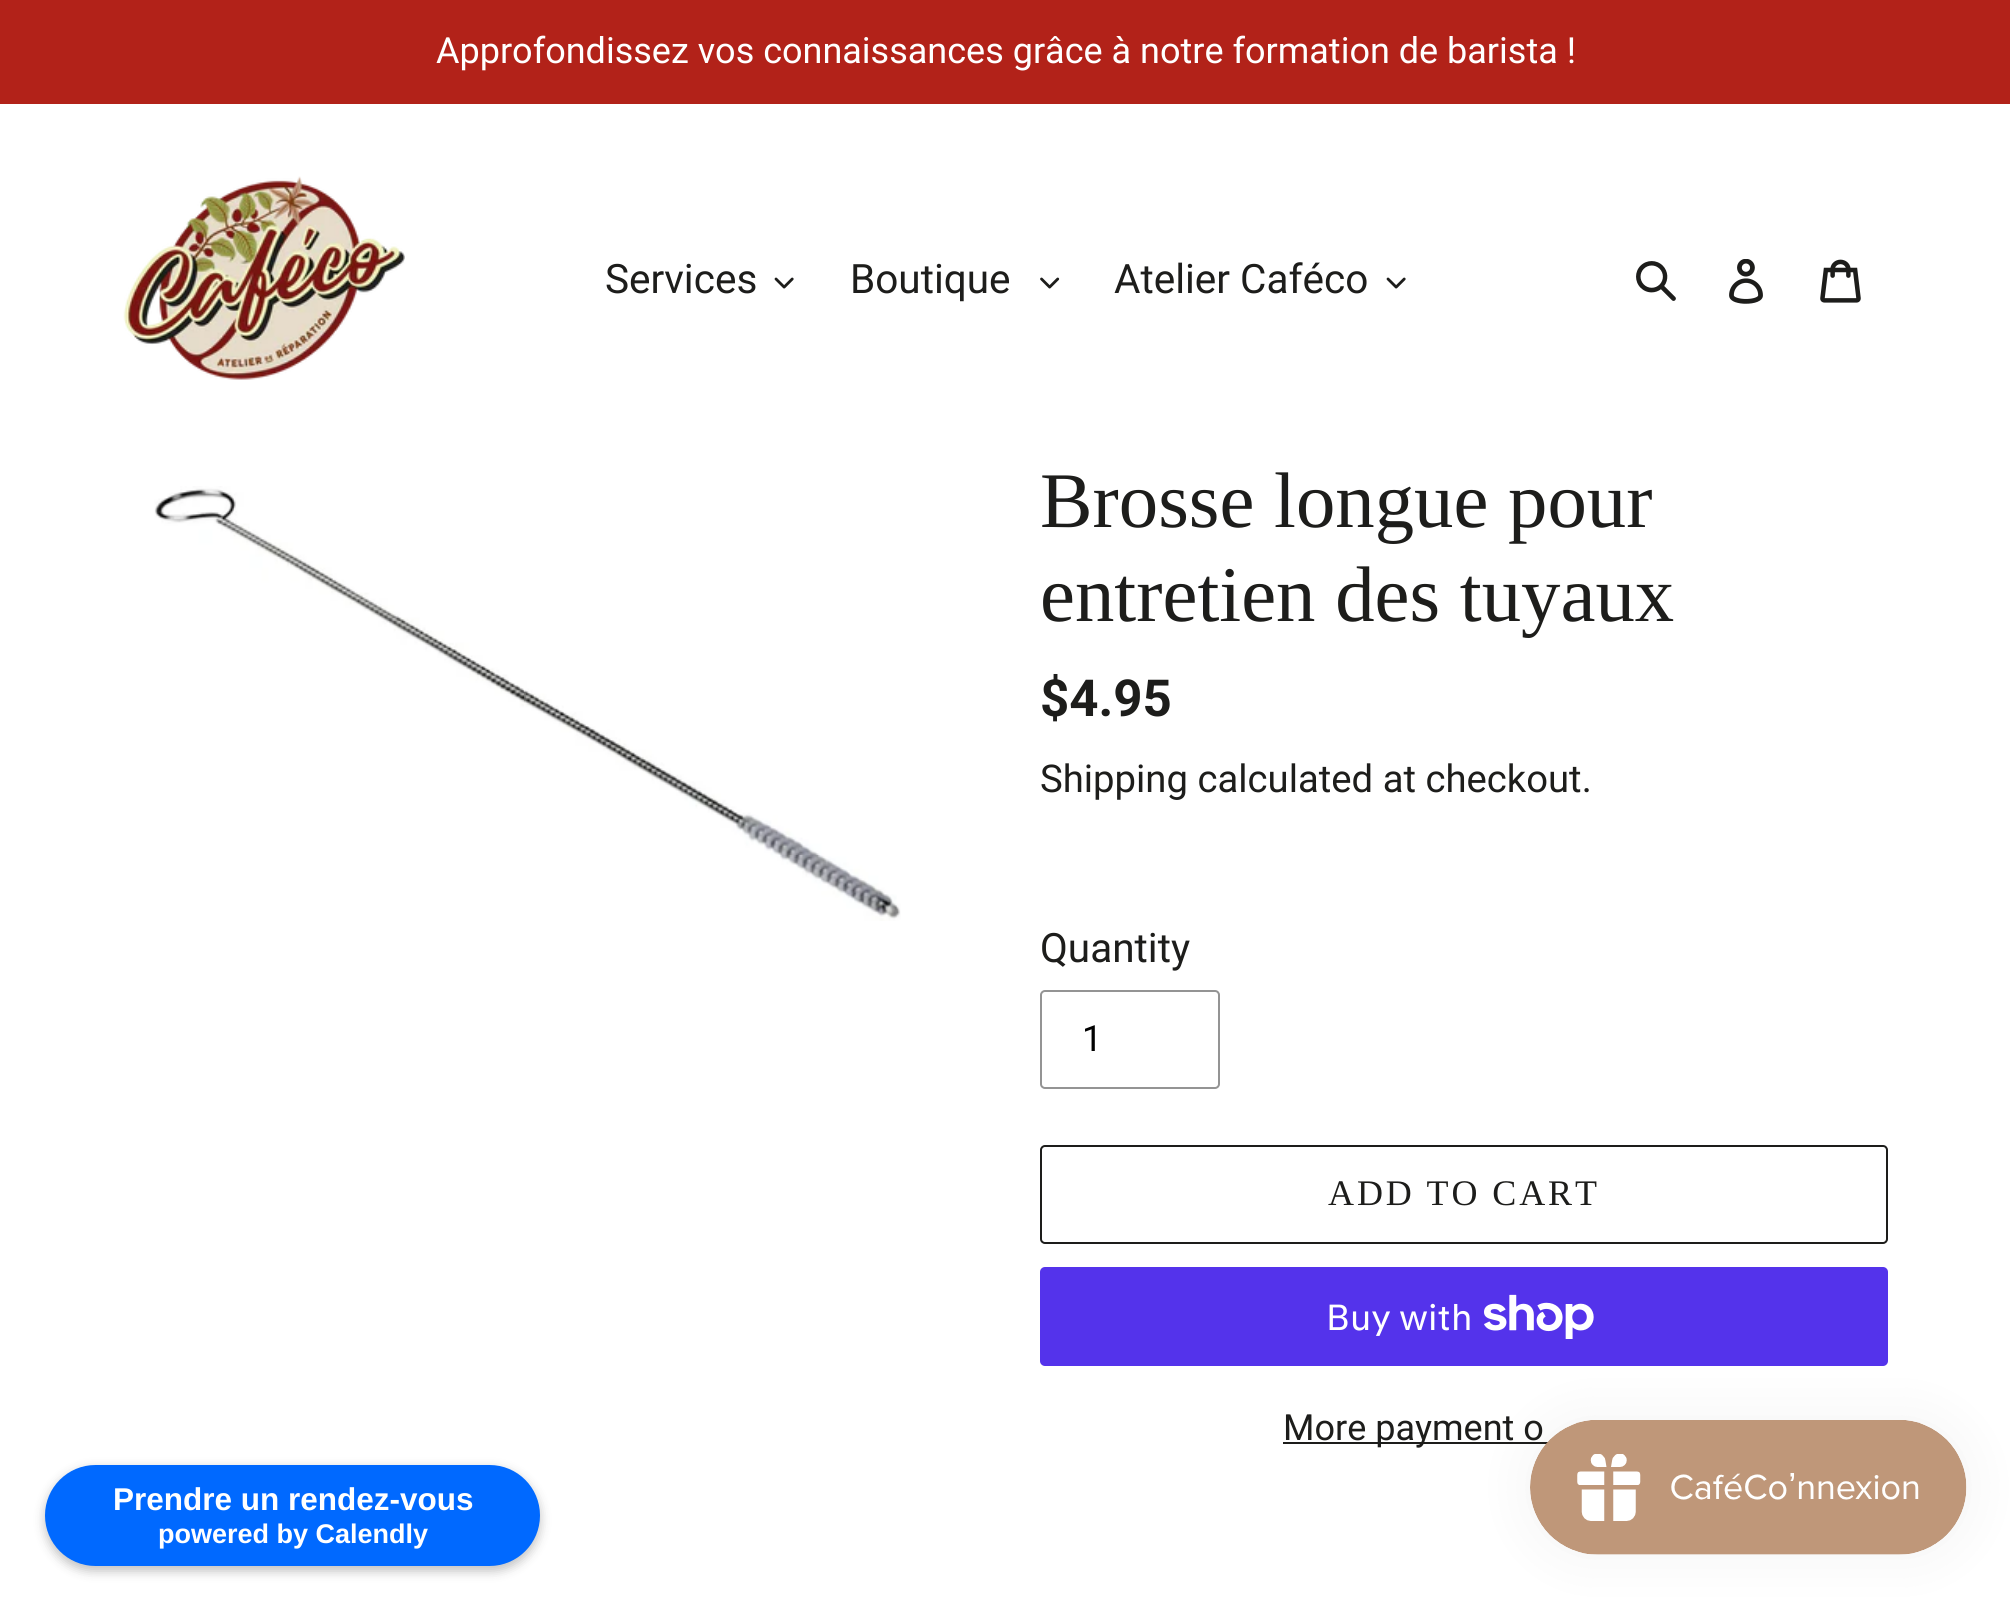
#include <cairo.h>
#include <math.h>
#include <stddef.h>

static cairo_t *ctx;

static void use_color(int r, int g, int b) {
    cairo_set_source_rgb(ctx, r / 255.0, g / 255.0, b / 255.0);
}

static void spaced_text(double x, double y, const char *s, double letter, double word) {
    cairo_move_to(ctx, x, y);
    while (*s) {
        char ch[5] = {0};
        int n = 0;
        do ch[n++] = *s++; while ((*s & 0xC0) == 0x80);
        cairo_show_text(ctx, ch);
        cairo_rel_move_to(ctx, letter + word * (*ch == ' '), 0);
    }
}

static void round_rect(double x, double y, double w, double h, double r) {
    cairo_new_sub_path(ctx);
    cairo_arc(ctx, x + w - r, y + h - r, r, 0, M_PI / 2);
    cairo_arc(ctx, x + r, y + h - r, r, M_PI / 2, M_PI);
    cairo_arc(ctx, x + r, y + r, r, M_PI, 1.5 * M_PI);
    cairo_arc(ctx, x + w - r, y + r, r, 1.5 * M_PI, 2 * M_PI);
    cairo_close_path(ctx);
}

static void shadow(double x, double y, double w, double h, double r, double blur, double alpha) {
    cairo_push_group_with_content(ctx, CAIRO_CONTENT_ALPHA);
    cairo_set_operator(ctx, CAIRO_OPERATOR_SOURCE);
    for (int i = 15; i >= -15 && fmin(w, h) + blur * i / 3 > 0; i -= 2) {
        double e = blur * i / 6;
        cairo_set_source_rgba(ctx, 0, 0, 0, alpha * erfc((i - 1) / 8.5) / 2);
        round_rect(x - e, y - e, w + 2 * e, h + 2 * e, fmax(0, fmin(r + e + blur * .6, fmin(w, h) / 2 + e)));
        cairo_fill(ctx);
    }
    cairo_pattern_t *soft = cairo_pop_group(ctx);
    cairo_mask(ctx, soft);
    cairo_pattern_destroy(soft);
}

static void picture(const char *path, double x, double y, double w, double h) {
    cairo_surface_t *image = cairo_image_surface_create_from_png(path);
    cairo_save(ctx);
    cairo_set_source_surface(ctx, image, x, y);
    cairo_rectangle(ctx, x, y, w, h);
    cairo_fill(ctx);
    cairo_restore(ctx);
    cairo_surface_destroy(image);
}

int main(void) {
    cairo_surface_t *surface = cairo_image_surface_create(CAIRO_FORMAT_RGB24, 2010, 1599);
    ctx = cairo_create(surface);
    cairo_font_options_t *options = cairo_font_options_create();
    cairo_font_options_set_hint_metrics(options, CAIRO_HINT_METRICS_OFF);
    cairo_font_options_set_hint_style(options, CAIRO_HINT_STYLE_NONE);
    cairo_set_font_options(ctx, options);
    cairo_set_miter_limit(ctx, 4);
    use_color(255, 255, 255);
    cairo_paint(ctx);
    use_color(178, 34, 25);
    cairo_rectangle(ctx, 0, 0, 2010, 104);
    cairo_fill(ctx);
    cairo_select_font_face(ctx, "Roboto", CAIRO_FONT_SLANT_NORMAL, CAIRO_FONT_WEIGHT_NORMAL);
    cairo_set_font_size(ctx, 36);
    use_color(255, 255, 255);
    cairo_move_to(ctx, 436, 63);
    cairo_show_text(ctx, "Approfondissez vos connaissances grâce à notre formation de barista !");
    picture("img1.png", 123, 176, 282, 204);
    cairo_set_font_size(ctx, 40.5);
    use_color(29, 29, 27);
    cairo_move_to(ctx, 605, 293);
    cairo_show_text(ctx, "Services");
    picture("img2.png", 774, 277, 20, 12);
    cairo_move_to(ctx, 850, 293);
    cairo_show_text(ctx, "Boutique");
    picture("img3.png", 1040, 277, 20, 12);
    cairo_move_to(ctx, 1114, 293);
    cairo_show_text(ctx, "Atelier Caféco");
    picture("img2.png", 1386, 277, 20, 12);
    picture("img4.png", 1636, 261, 40, 40);
    picture("img5.png", 1729, 259, 34, 45);
    picture("img6.png", 1820, 259, 41, 44);
    use_color(0, 0, 0);
    shadow(45, 1469, 495, 102, 51, 5.5, 0.25);
    use_color(0, 105, 255);
    round_rect(45, 1465, 495, 101, 50.5);
    cairo_fill(ctx);
    cairo_select_font_face(ctx, "Liberation Sans", CAIRO_FONT_SLANT_NORMAL, CAIRO_FONT_WEIGHT_BOLD);
    cairo_set_font_size(ctx, 31.5);
    use_color(255, 255, 255);
    cairo_move_to(ctx, 113, 1510);
    cairo_show_text(ctx, "Prendre un rendez-vous");
    cairo_set_font_size(ctx, 27);
    cairo_move_to(ctx, 158, 1543);
    cairo_show_text(ctx, "powered by Calendly");
    picture("img7.png", 154, 486, 747, 435);
    cairo_select_font_face(ctx, "Liberation Serif", CAIRO_FONT_SLANT_NORMAL, CAIRO_FONT_WEIGHT_NORMAL);
    cairo_set_font_size(ctx, 78.75);
    use_color(29, 29, 27);
    cairo_move_to(ctx, 1040, 527);
    cairo_show_text(ctx, "Brosse longue pour");
    cairo_move_to(ctx, 1040, 621);
    cairo_show_text(ctx, "entretien des tuyaux");
    cairo_select_font_face(ctx, "Roboto", CAIRO_FONT_SLANT_NORMAL, CAIRO_FONT_WEIGHT_BOLD);
    cairo_set_font_size(ctx, 51);
    cairo_move_to(ctx, 1040, 716);
    cairo_show_text(ctx, "$4.95");
    cairo_select_font_face(ctx, "Roboto", CAIRO_FONT_SLANT_NORMAL, CAIRO_FONT_WEIGHT_NORMAL);
    cairo_set_font_size(ctx, 38.25);
    cairo_move_to(ctx, 1040, 792);
    cairo_show_text(ctx, "Shipping calculated at checkout.");
    cairo_set_font_size(ctx, 40.5);
    cairo_move_to(ctx, 1040, 962);
    cairo_show_text(ctx, "Quantity");
    round_rect(1041, 991, 178, 97, 4);
    use_color(148, 148, 148);
    cairo_stroke(ctx);
    cairo_set_font_size(ctx, 36);
    use_color(0, 0, 0);
    cairo_move_to(ctx, 1082, 1051);
    cairo_show_text(ctx, "1");
    round_rect(1041, 1146, 846, 97, 4);
    use_color(29, 29, 27);
    cairo_stroke(ctx);
    cairo_select_font_face(ctx, "Liberation Serif", CAIRO_FONT_SLANT_NORMAL, CAIRO_FONT_WEIGHT_NORMAL);
    spaced_text(1328, 1205, "ADD TO CART", 2.9, 0);
    use_color(84, 51, 235);
    round_rect(1040, 1267, 848, 99, 5);
    cairo_fill(ctx);
    cairo_select_font_face(ctx, "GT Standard", CAIRO_FONT_SLANT_NORMAL, CAIRO_FONT_WEIGHT_NORMAL);
    use_color(255, 255, 255);
    cairo_move_to(ctx, 1326, 1330);
    cairo_show_text(ctx, "Buy with");
    picture("img8.png", 1484, 1294, 110, 45);
    use_color(29, 29, 27);
    cairo_rectangle(ctx, 1283, 1442, 265, 2);
    cairo_fill(ctx);
    cairo_select_font_face(ctx, "Roboto", CAIRO_FONT_SLANT_NORMAL, CAIRO_FONT_WEIGHT_NORMAL);
    cairo_move_to(ctx, 1283, 1440);
    cairo_show_text(ctx, "More payment o");
    use_color(0, 0, 0);
    shadow(1530, 1420, 437, 135, 67.5, 28, 0.05);
    picture("img9.png", 1530, 1420, 437, 135);
    cairo_surface_write_to_png(surface, "result.png");
    cairo_font_options_destroy(options);
    cairo_destroy(ctx);
    cairo_surface_destroy(surface);
    return 0;
}
